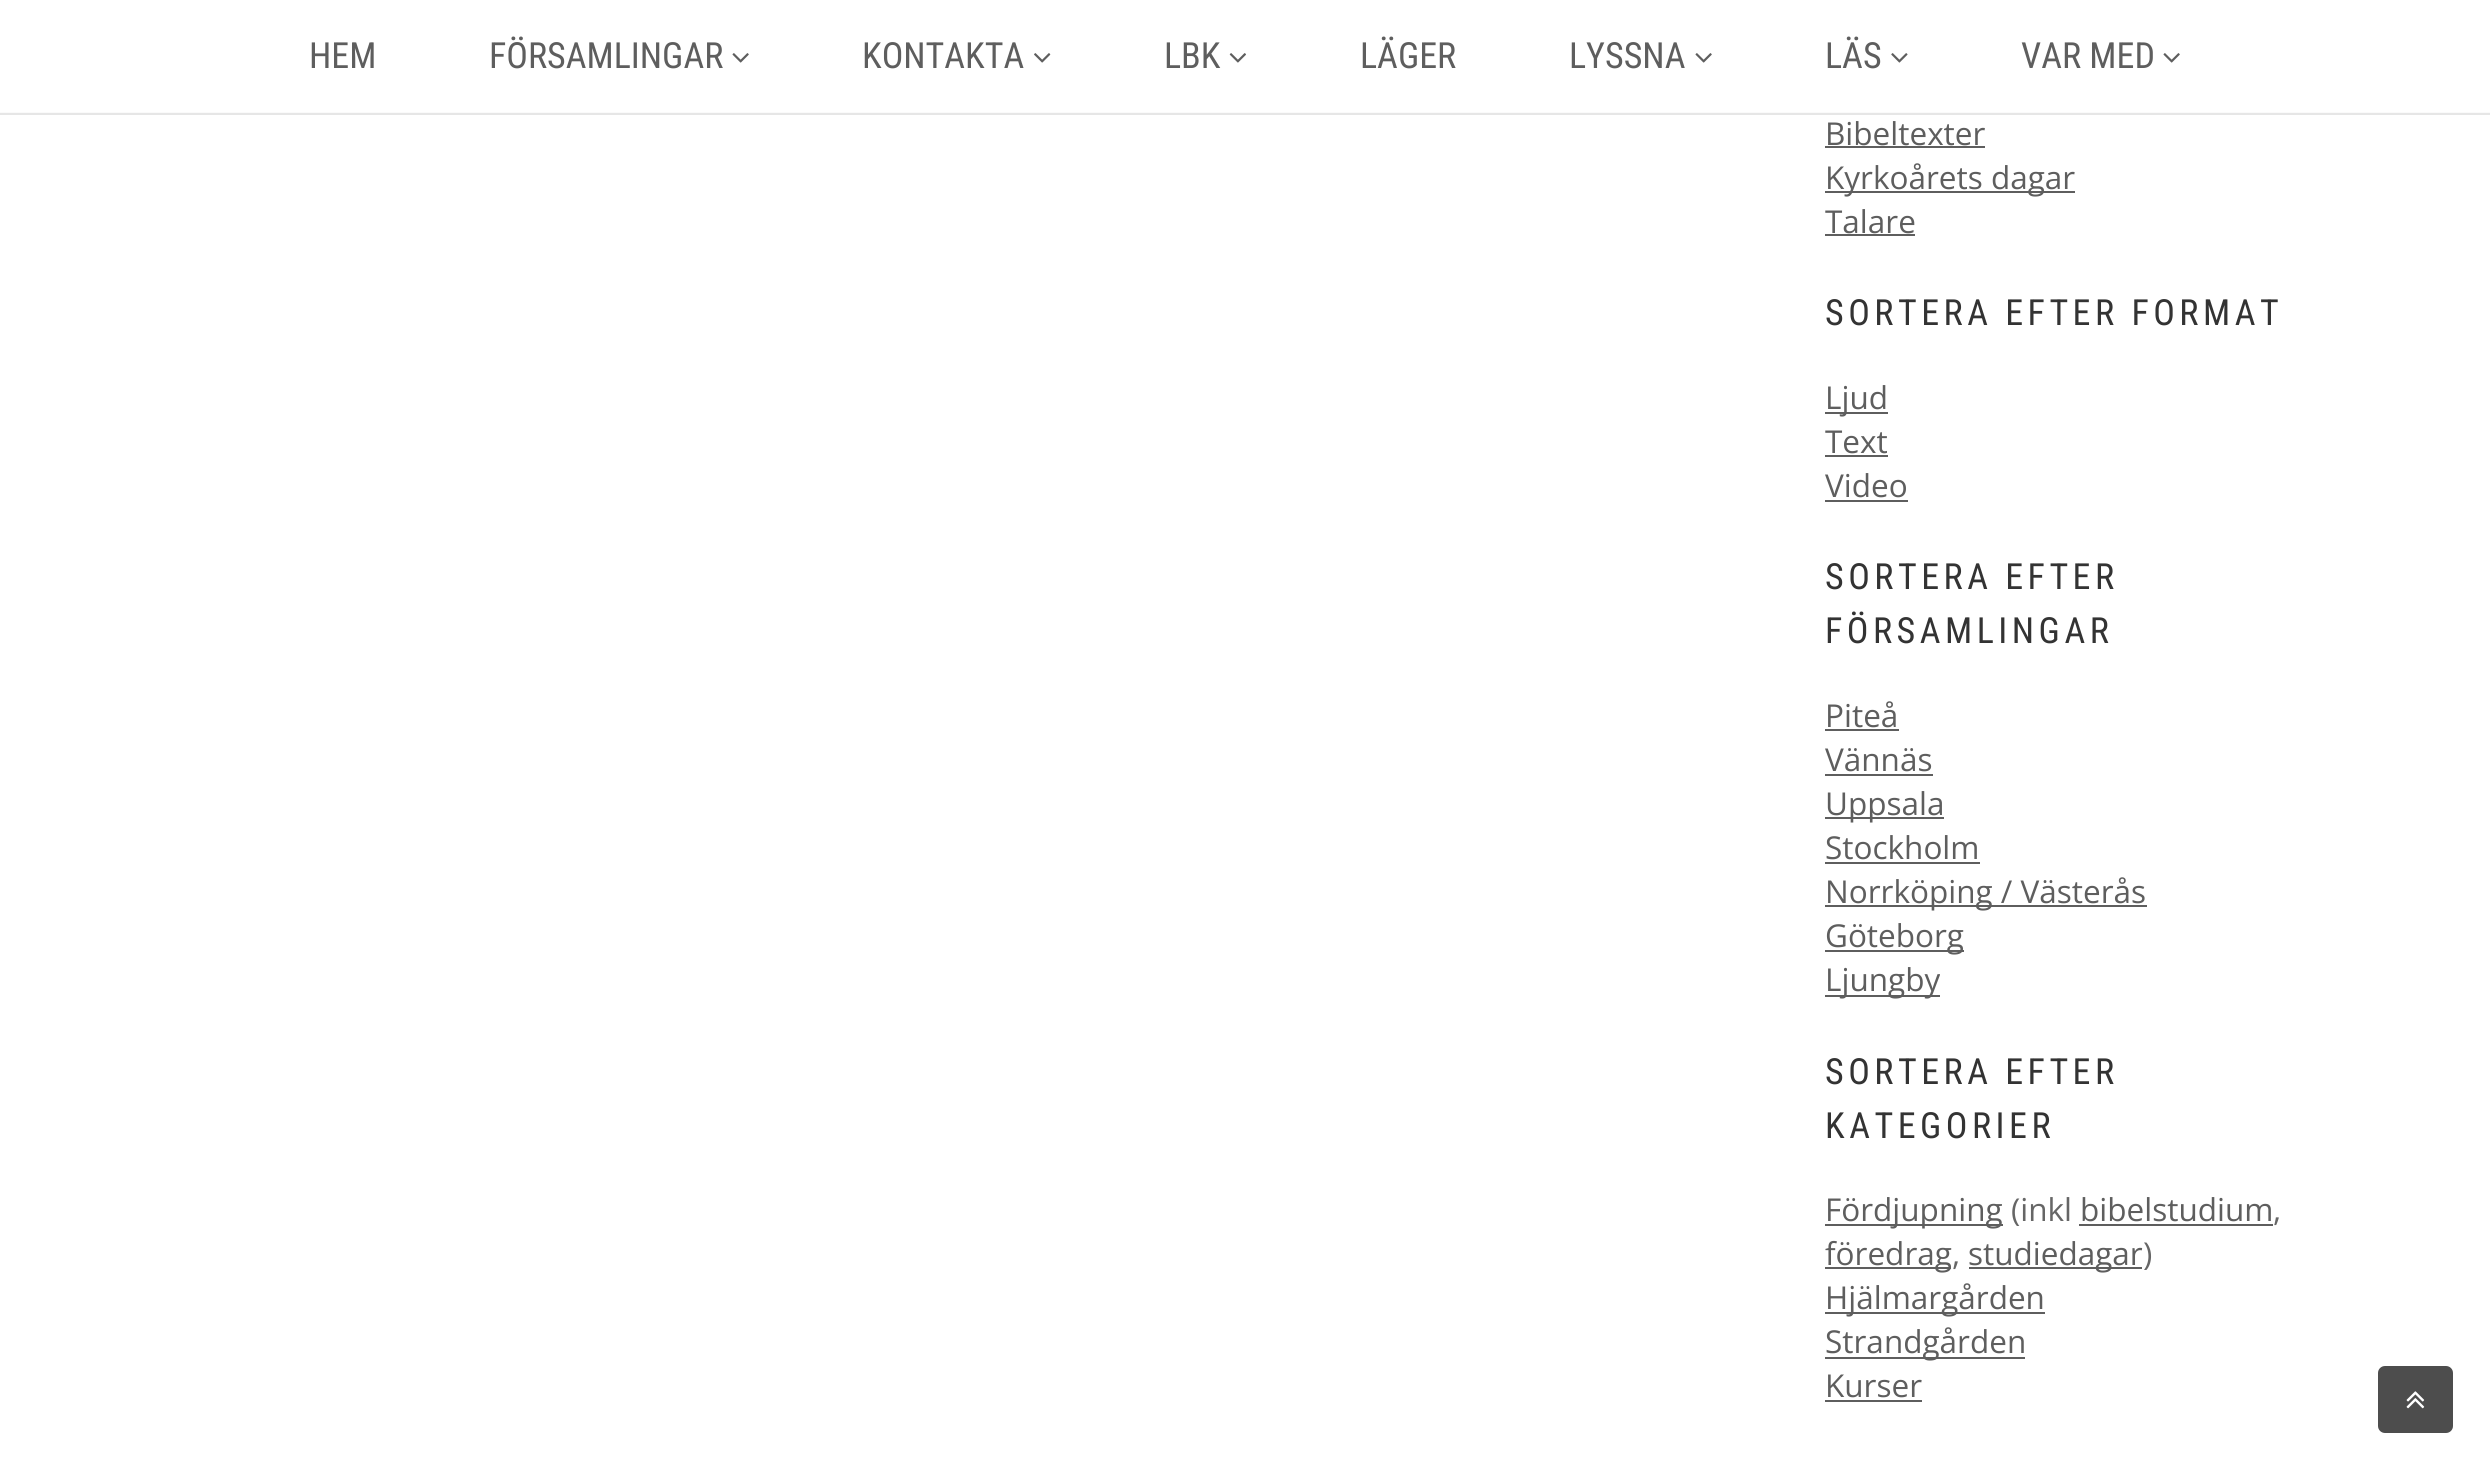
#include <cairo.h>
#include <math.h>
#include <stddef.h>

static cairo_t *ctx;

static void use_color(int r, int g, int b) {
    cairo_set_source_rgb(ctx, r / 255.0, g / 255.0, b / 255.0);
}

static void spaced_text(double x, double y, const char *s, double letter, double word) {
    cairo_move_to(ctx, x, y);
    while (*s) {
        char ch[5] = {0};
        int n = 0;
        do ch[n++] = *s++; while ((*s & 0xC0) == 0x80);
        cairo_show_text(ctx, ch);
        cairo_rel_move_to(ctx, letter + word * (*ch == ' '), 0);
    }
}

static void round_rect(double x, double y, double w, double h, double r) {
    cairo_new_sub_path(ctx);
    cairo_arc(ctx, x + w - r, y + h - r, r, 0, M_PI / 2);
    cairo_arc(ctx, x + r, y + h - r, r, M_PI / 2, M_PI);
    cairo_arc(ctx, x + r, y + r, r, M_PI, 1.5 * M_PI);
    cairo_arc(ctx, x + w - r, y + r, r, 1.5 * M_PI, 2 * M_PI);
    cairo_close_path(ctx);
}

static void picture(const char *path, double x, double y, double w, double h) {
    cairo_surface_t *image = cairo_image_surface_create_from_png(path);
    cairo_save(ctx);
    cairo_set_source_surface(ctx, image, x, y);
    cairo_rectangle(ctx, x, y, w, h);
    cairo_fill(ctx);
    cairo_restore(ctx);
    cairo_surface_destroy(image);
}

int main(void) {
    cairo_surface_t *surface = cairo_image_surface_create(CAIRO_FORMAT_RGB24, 2490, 1471);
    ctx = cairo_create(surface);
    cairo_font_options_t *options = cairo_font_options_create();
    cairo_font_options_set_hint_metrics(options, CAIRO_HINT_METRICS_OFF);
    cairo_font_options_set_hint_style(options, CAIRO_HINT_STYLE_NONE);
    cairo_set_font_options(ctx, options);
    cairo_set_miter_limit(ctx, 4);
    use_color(255, 255, 255);
    cairo_paint(ctx);
    use_color(230, 230, 230);
    cairo_new_path(ctx);
    cairo_move_to(ctx, 0, 112);
    cairo_line_to(ctx, 0, 115);
    cairo_line_to(ctx, 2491, 115);
    cairo_line_to(ctx, 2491, 2);
    cairo_line_to(ctx, 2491, 112);
    cairo_close_path(ctx);
    cairo_fill(ctx);
    cairo_set_source_rgba(ctx, 1, 1, 1, 0.8);
    cairo_rectangle(ctx, 0, 112, 2490, 1);
    cairo_fill(ctx);
    cairo_select_font_face(ctx, "Roboto Condensed", CAIRO_FONT_SLANT_NORMAL, CAIRO_FONT_WEIGHT_NORMAL);
    cairo_set_font_size(ctx, 36);
    use_color(94, 94, 94);
    cairo_move_to(ctx, 309, 68);
    cairo_show_text(ctx, "HEM");
    cairo_move_to(ctx, 489, 68);
    cairo_show_text(ctx, "FÖRSAMLINGAR");
    picture("img1.png", 732, 53, 17, 10);
    cairo_move_to(ctx, 862, 68);
    cairo_show_text(ctx, "KONTAKTA");
    picture("img2.png", 1034, 53, 17, 10);
    cairo_move_to(ctx, 1164, 68);
    cairo_show_text(ctx, "LBK");
    picture("img3.png", 1229, 53, 17, 10);
    cairo_move_to(ctx, 1360, 68);
    cairo_show_text(ctx, "LÄGER");
    cairo_move_to(ctx, 1569, 68);
    cairo_show_text(ctx, "LYSSNA");
    picture("img1.png", 1695, 53, 17, 10);
    cairo_move_to(ctx, 1825, 68);
    cairo_show_text(ctx, "LÄS");
    picture("img4.png", 1891, 53, 17, 10);
    cairo_move_to(ctx, 2021, 68);
    cairo_show_text(ctx, "VAR MED");
    picture("img5.png", 2163, 53, 17, 10);
    cairo_select_font_face(ctx, "Open Sans", CAIRO_FONT_SLANT_NORMAL, CAIRO_FONT_WEIGHT_NORMAL);
    cairo_set_font_size(ctx, 31.5);
    cairo_move_to(ctx, 1825, 145);
    cairo_show_text(ctx, "Bibeltexter");
    cairo_rectangle(ctx, 1825, 146, 160, 2);
    cairo_fill(ctx);
    cairo_rectangle(ctx, 1825, 191, 250, 2);
    cairo_fill(ctx);
    cairo_move_to(ctx, 1825, 189);
    cairo_show_text(ctx, "Kyrkoårets dagar");
    cairo_move_to(ctx, 1825, 233);
    cairo_show_text(ctx, "Talare");
    cairo_rectangle(ctx, 1825, 234, 90, 2);
    cairo_fill(ctx);
    cairo_select_font_face(ctx, "Roboto Condensed", CAIRO_FONT_SLANT_NORMAL, CAIRO_FONT_WEIGHT_NORMAL);
    cairo_set_font_size(ctx, 36);
    use_color(51, 51, 51);
    spaced_text(1825, 325, "SORTERA EFTER FORMAT", 4.5, 0);
    use_color(94, 94, 94);
    cairo_rectangle(ctx, 1825, 412, 63, 2);
    cairo_fill(ctx);
    cairo_select_font_face(ctx, "Open Sans", CAIRO_FONT_SLANT_NORMAL, CAIRO_FONT_WEIGHT_NORMAL);
    cairo_set_font_size(ctx, 31.5);
    cairo_move_to(ctx, 1825, 409);
    cairo_show_text(ctx, "Ljud");
    cairo_move_to(ctx, 1825, 453);
    cairo_show_text(ctx, "Text");
    cairo_rectangle(ctx, 1825, 455, 63, 2);
    cairo_fill(ctx);
    cairo_move_to(ctx, 1825, 497);
    cairo_show_text(ctx, "Video");
    cairo_rectangle(ctx, 1825, 500, 83, 2);
    cairo_fill(ctx);
    cairo_select_font_face(ctx, "Roboto Condensed", CAIRO_FONT_SLANT_NORMAL, CAIRO_FONT_WEIGHT_NORMAL);
    cairo_set_font_size(ctx, 36);
    use_color(51, 51, 51);
    spaced_text(1825, 589, "SORTERA EFTER", 4.5, 0);
    spaced_text(1825, 643, "FÖRSAMLINGAR", 4.5, 0);
    cairo_select_font_face(ctx, "Open Sans", CAIRO_FONT_SLANT_NORMAL, CAIRO_FONT_WEIGHT_NORMAL);
    cairo_set_font_size(ctx, 31.5);
    use_color(94, 94, 94);
    cairo_move_to(ctx, 1825, 727);
    cairo_show_text(ctx, "Piteå");
    cairo_rectangle(ctx, 1825, 729, 74, 2);
    cairo_fill(ctx);
    cairo_move_to(ctx, 1825, 771);
    cairo_show_text(ctx, "Vännäs");
    cairo_rectangle(ctx, 1825, 774, 108, 2);
    cairo_fill(ctx);
    cairo_rectangle(ctx, 1825, 817, 119, 2);
    cairo_fill(ctx);
    cairo_move_to(ctx, 1825, 815);
    cairo_show_text(ctx, "Uppsala");
    cairo_move_to(ctx, 1825, 859);
    cairo_show_text(ctx, "Stockholm");
    cairo_rectangle(ctx, 1825, 862, 155, 2);
    cairo_fill(ctx);
    cairo_rectangle(ctx, 1825, 905, 322, 2);
    cairo_fill(ctx);
    cairo_move_to(ctx, 1825, 903);
    cairo_show_text(ctx, "Norrköping / Västerås");
    cairo_rectangle(ctx, 1825, 950, 139, 2);
    cairo_fill(ctx);
    cairo_move_to(ctx, 1825, 947);
    cairo_show_text(ctx, "Göteborg");
    cairo_rectangle(ctx, 1825, 995, 115, 2);
    cairo_fill(ctx);
    cairo_move_to(ctx, 1825, 991);
    cairo_show_text(ctx, "Ljungby");
    cairo_select_font_face(ctx, "Roboto Condensed", CAIRO_FONT_SLANT_NORMAL, CAIRO_FONT_WEIGHT_NORMAL);
    cairo_set_font_size(ctx, 36);
    use_color(51, 51, 51);
    spaced_text(1825, 1084, "SORTERA EFTER", 4.5, 0);
    spaced_text(1825, 1138, "KATEGORIER", 4.5, 0);
    use_color(94, 94, 94);
    cairo_rectangle(ctx, 1825, 1224, 178, 2);
    cairo_fill(ctx);
    cairo_select_font_face(ctx, "Open Sans", CAIRO_FONT_SLANT_NORMAL, CAIRO_FONT_WEIGHT_NORMAL);
    cairo_set_font_size(ctx, 31.5);
    cairo_move_to(ctx, 1825, 1221);
    cairo_show_text(ctx, "Fördjupning");
    use_color(102, 102, 102);
    cairo_move_to(ctx, 2011, 1221);
    cairo_show_text(ctx, "(inkl");
    use_color(94, 94, 94);
    cairo_move_to(ctx, 2080, 1221);
    cairo_show_text(ctx, "bibelstudium");
    cairo_rectangle(ctx, 2079, 1224, 194, 2);
    cairo_fill(ctx);
    use_color(102, 102, 102);
    cairo_move_to(ctx, 2273, 1221);
    cairo_show_text(ctx, ",");
    use_color(94, 94, 94);
    cairo_rectangle(ctx, 1825, 1267, 126, 2);
    cairo_fill(ctx);
    cairo_move_to(ctx, 1825, 1265);
    cairo_show_text(ctx, "föredrag");
    use_color(102, 102, 102);
    cairo_move_to(ctx, 1952, 1265);
    cairo_show_text(ctx, ",");
    use_color(94, 94, 94);
    cairo_rectangle(ctx, 1969, 1267, 173, 2);
    cairo_fill(ctx);
    cairo_move_to(ctx, 1968, 1265);
    cairo_show_text(ctx, "studiedagar");
    use_color(102, 102, 102);
    cairo_move_to(ctx, 2143, 1265);
    cairo_show_text(ctx, ")");
    use_color(94, 94, 94);
    cairo_rectangle(ctx, 1825, 1312, 220, 2);
    cairo_fill(ctx);
    cairo_move_to(ctx, 1825, 1309);
    cairo_show_text(ctx, "Hjälmargården");
    cairo_rectangle(ctx, 1825, 1357, 200, 2);
    cairo_fill(ctx);
    cairo_move_to(ctx, 1825, 1353);
    cairo_show_text(ctx, "Strandgården");
    cairo_move_to(ctx, 1825, 1397);
    cairo_show_text(ctx, "Kurser");
    cairo_rectangle(ctx, 1825, 1400, 97, 2);
    cairo_fill(ctx);
    use_color(77, 77, 77);
    round_rect(2378, 1366, 75, 67, 7);
    cairo_fill(ctx);
    picture("img6.png", 2406, 1391, 19, 18);
    cairo_surface_write_to_png(surface, "result.png");
    cairo_font_options_destroy(options);
    cairo_destroy(ctx);
    cairo_surface_destroy(surface);
    return 0;
}
